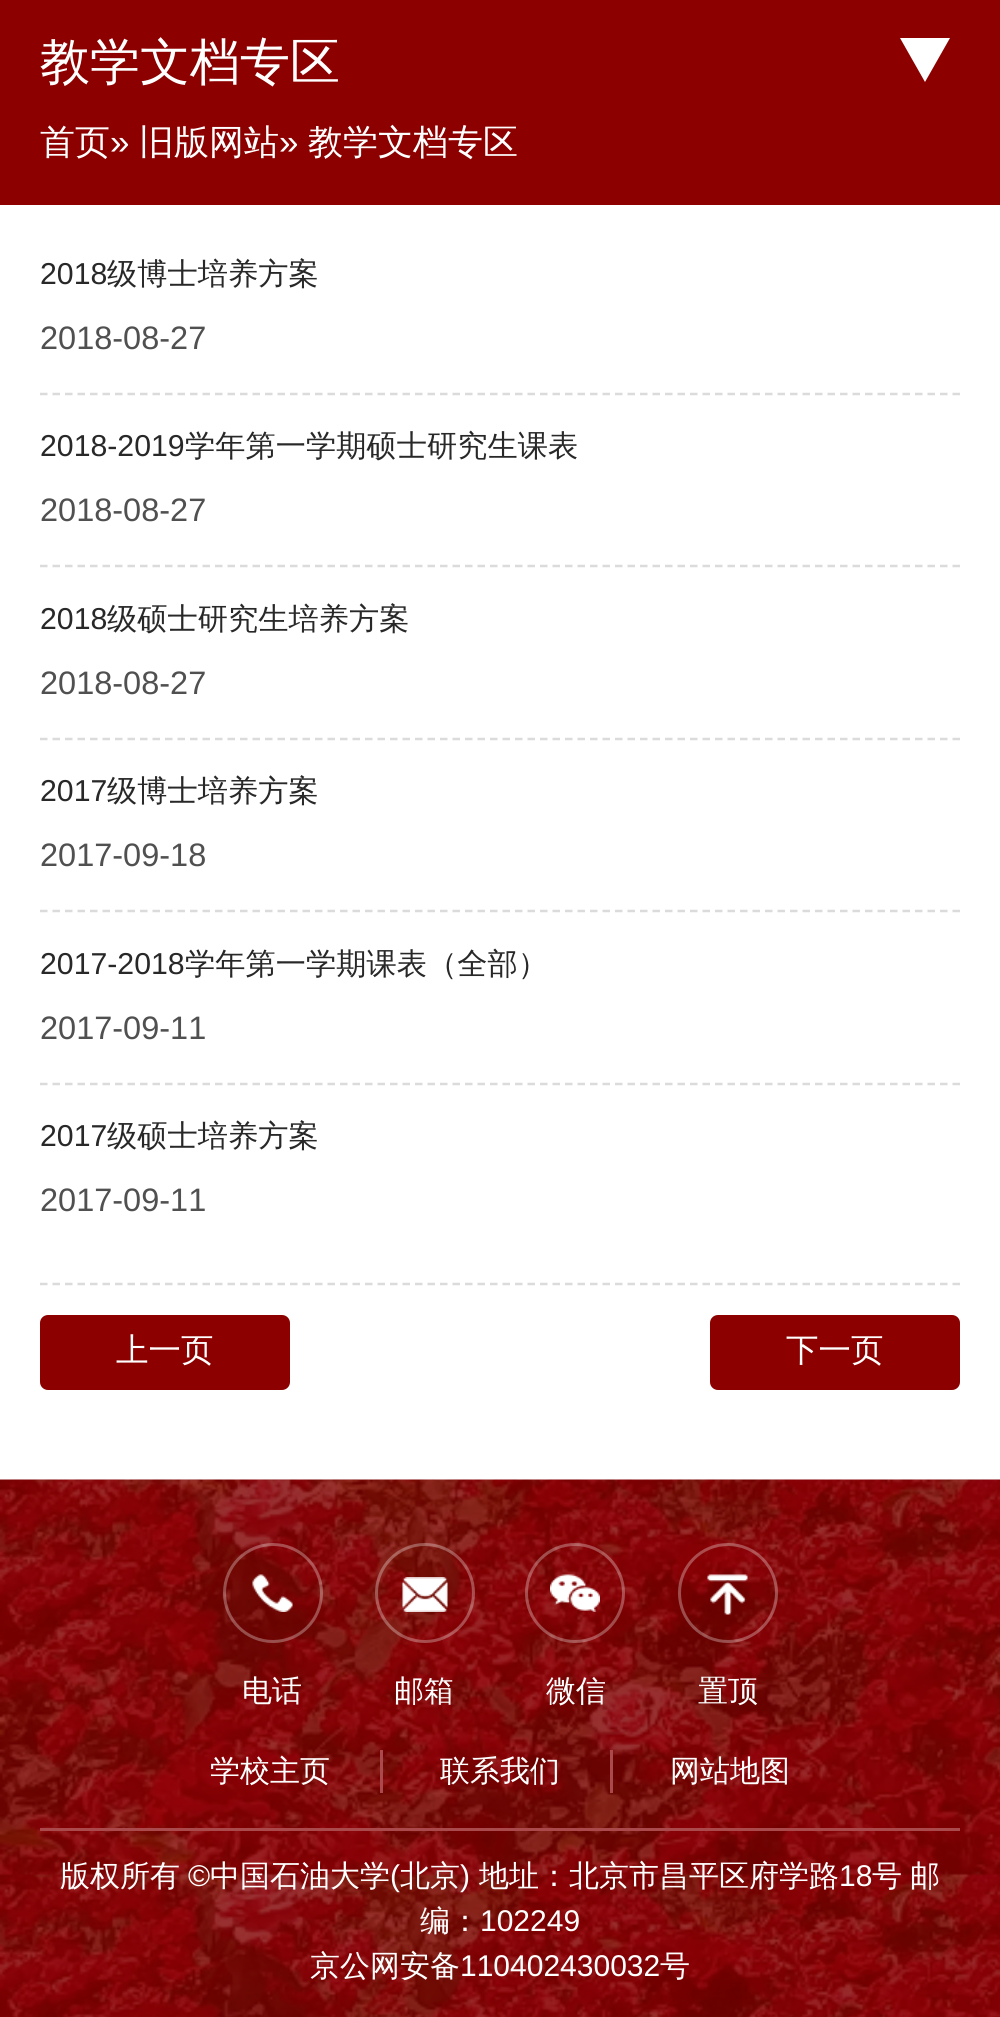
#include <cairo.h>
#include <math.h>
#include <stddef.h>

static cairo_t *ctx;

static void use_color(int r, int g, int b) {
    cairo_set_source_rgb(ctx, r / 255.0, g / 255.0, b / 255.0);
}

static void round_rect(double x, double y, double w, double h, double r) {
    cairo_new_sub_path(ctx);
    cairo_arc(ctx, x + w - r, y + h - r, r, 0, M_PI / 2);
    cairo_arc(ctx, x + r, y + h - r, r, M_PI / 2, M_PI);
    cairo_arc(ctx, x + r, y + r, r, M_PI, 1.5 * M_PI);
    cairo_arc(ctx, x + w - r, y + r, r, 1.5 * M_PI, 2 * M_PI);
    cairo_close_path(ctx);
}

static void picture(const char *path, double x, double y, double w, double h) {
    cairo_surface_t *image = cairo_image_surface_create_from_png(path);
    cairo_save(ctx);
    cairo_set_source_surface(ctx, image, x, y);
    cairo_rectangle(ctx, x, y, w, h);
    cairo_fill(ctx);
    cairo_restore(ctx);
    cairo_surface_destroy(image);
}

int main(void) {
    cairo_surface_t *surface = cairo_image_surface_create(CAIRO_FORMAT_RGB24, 1000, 2017);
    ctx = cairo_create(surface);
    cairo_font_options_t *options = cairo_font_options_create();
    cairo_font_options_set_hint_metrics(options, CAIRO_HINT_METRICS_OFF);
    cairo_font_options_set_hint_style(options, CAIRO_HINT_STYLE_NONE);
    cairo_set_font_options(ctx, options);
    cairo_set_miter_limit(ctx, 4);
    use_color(255, 255, 255);
    cairo_paint(ctx);
    use_color(140, 0, 0);
    cairo_rectangle(ctx, 0, 0, 1000, 205);
    cairo_fill(ctx);
    cairo_select_font_face(ctx, "WenQuanYi Zen Hei Medium", CAIRO_FONT_SLANT_NORMAL, CAIRO_FONT_WEIGHT_NORMAL);
    cairo_set_font_size(ctx, 50);
    use_color(255, 255, 255);
    cairo_move_to(ctx, 40, 79);
    cairo_show_text(ctx, "教学文档专区");
    cairo_new_path(ctx);
    cairo_move_to(ctx, 900, 38);
    cairo_line_to(ctx, 950, 38);
    cairo_line_to(ctx, 925, 82);
    cairo_close_path(ctx);
    cairo_fill(ctx);
    cairo_set_font_size(ctx, 35);
    cairo_move_to(ctx, 40, 154);
    cairo_show_text(ctx, "首页");
    cairo_select_font_face(ctx, "Liberation Sans", CAIRO_FONT_SLANT_NORMAL, CAIRO_FONT_WEIGHT_NORMAL);
    cairo_move_to(ctx, 110, 154);
    cairo_show_text(ctx, "»");
    cairo_select_font_face(ctx, "WenQuanYi Zen Hei Medium", CAIRO_FONT_SLANT_NORMAL, CAIRO_FONT_WEIGHT_NORMAL);
    cairo_move_to(ctx, 139, 154);
    cairo_show_text(ctx, "旧版网站");
    cairo_select_font_face(ctx, "Liberation Sans", CAIRO_FONT_SLANT_NORMAL, CAIRO_FONT_WEIGHT_NORMAL);
    cairo_move_to(ctx, 279, 154);
    cairo_show_text(ctx, "»");
    cairo_select_font_face(ctx, "WenQuanYi Zen Hei Medium", CAIRO_FONT_SLANT_NORMAL, CAIRO_FONT_WEIGHT_NORMAL);
    cairo_move_to(ctx, 308, 154);
    cairo_show_text(ctx, "教学文档专区");
    cairo_new_path(ctx);
    cairo_move_to(ctx, 40, 394);
    cairo_line_to(ctx, 960, 394);
    use_color(219, 219, 219);
    cairo_set_line_width(ctx, 2.5);
    cairo_set_dash(ctx, (double[]){7.5, 5}, 2, 0);
    cairo_stroke(ctx);
    cairo_select_font_face(ctx, "Liberation Sans", CAIRO_FONT_SLANT_NORMAL, CAIRO_FONT_WEIGHT_NORMAL);
    cairo_set_font_size(ctx, 30.25);
    use_color(40, 40, 40);
    cairo_move_to(ctx, 40, 284);
    cairo_show_text(ctx, "2018");
    cairo_select_font_face(ctx, "WenQuanYi Zen Hei Medium", CAIRO_FONT_SLANT_NORMAL, CAIRO_FONT_WEIGHT_NORMAL);
    cairo_move_to(ctx, 107, 284);
    cairo_show_text(ctx, "级博士培养方案");
    cairo_select_font_face(ctx, "Liberation Sans", CAIRO_FONT_SLANT_NORMAL, CAIRO_FONT_WEIGHT_NORMAL);
    cairo_set_font_size(ctx, 32.5);
    use_color(80, 80, 80);
    cairo_move_to(ctx, 40, 349);
    cairo_show_text(ctx, "2018-08-27");
    cairo_new_path(ctx);
    cairo_move_to(ctx, 40, 566);
    cairo_line_to(ctx, 960, 566);
    use_color(219, 219, 219);
    cairo_stroke(ctx);
    cairo_set_font_size(ctx, 30.25);
    use_color(40, 40, 40);
    cairo_move_to(ctx, 40, 456);
    cairo_show_text(ctx, "2018-2019");
    cairo_select_font_face(ctx, "WenQuanYi Zen Hei Medium", CAIRO_FONT_SLANT_NORMAL, CAIRO_FONT_WEIGHT_NORMAL);
    cairo_move_to(ctx, 185, 456);
    cairo_show_text(ctx, "学年第一学期硕士研究生课表");
    cairo_select_font_face(ctx, "Liberation Sans", CAIRO_FONT_SLANT_NORMAL, CAIRO_FONT_WEIGHT_NORMAL);
    cairo_set_font_size(ctx, 32.5);
    use_color(80, 80, 80);
    cairo_move_to(ctx, 40, 521);
    cairo_show_text(ctx, "2018-08-27");
    cairo_new_path(ctx);
    cairo_move_to(ctx, 40, 739);
    cairo_line_to(ctx, 960, 739);
    use_color(219, 219, 219);
    cairo_stroke(ctx);
    cairo_set_font_size(ctx, 30.25);
    use_color(40, 40, 40);
    cairo_move_to(ctx, 40, 629);
    cairo_show_text(ctx, "2018");
    cairo_select_font_face(ctx, "WenQuanYi Zen Hei Medium", CAIRO_FONT_SLANT_NORMAL, CAIRO_FONT_WEIGHT_NORMAL);
    cairo_move_to(ctx, 107, 629);
    cairo_show_text(ctx, "级硕士研究生培养方案");
    cairo_select_font_face(ctx, "Liberation Sans", CAIRO_FONT_SLANT_NORMAL, CAIRO_FONT_WEIGHT_NORMAL);
    cairo_set_font_size(ctx, 32.5);
    use_color(80, 80, 80);
    cairo_move_to(ctx, 40, 694);
    cairo_show_text(ctx, "2018-08-27");
    cairo_new_path(ctx);
    cairo_move_to(ctx, 40, 911);
    cairo_line_to(ctx, 960, 911);
    use_color(219, 219, 219);
    cairo_stroke(ctx);
    cairo_set_font_size(ctx, 30.25);
    use_color(40, 40, 40);
    cairo_move_to(ctx, 40, 801);
    cairo_show_text(ctx, "2017");
    cairo_select_font_face(ctx, "WenQuanYi Zen Hei Medium", CAIRO_FONT_SLANT_NORMAL, CAIRO_FONT_WEIGHT_NORMAL);
    cairo_move_to(ctx, 107, 801);
    cairo_show_text(ctx, "级博士培养方案");
    cairo_select_font_face(ctx, "Liberation Sans", CAIRO_FONT_SLANT_NORMAL, CAIRO_FONT_WEIGHT_NORMAL);
    cairo_set_font_size(ctx, 32.5);
    use_color(80, 80, 80);
    cairo_move_to(ctx, 40, 866);
    cairo_show_text(ctx, "2017-09-18");
    cairo_new_path(ctx);
    cairo_move_to(ctx, 40, 1084);
    cairo_line_to(ctx, 960, 1084);
    use_color(219, 219, 219);
    cairo_stroke(ctx);
    cairo_set_font_size(ctx, 30.25);
    use_color(40, 40, 40);
    cairo_move_to(ctx, 40, 974);
    cairo_show_text(ctx, "2017-2018");
    cairo_select_font_face(ctx, "WenQuanYi Zen Hei Medium", CAIRO_FONT_SLANT_NORMAL, CAIRO_FONT_WEIGHT_NORMAL);
    cairo_move_to(ctx, 185, 974);
    cairo_show_text(ctx, "学年第一学期课表（全部）");
    cairo_select_font_face(ctx, "Liberation Sans", CAIRO_FONT_SLANT_NORMAL, CAIRO_FONT_WEIGHT_NORMAL);
    cairo_set_font_size(ctx, 32.5);
    use_color(80, 80, 80);
    cairo_move_to(ctx, 40, 1039);
    cairo_show_text(ctx, "2017-09-11");
    cairo_set_font_size(ctx, 30.25);
    use_color(40, 40, 40);
    cairo_move_to(ctx, 40, 1146);
    cairo_show_text(ctx, "2017");
    cairo_select_font_face(ctx, "WenQuanYi Zen Hei Medium", CAIRO_FONT_SLANT_NORMAL, CAIRO_FONT_WEIGHT_NORMAL);
    cairo_move_to(ctx, 107, 1146);
    cairo_show_text(ctx, "级硕士培养方案");
    cairo_select_font_face(ctx, "Liberation Sans", CAIRO_FONT_SLANT_NORMAL, CAIRO_FONT_WEIGHT_NORMAL);
    cairo_set_font_size(ctx, 32.5);
    use_color(80, 80, 80);
    cairo_move_to(ctx, 40, 1211);
    cairo_show_text(ctx, "2017-09-11");
    cairo_new_path(ctx);
    cairo_move_to(ctx, 40, 1284);
    cairo_line_to(ctx, 960, 1284);
    use_color(219, 219, 219);
    cairo_stroke(ctx);
    use_color(140, 0, 0);
    round_rect(40, 1315, 250, 75, 8);
    cairo_fill(ctx);
    cairo_select_font_face(ctx, "WenQuanYi Zen Hei Medium", CAIRO_FONT_SLANT_NORMAL, CAIRO_FONT_WEIGHT_NORMAL);
    use_color(255, 255, 255);
    cairo_move_to(ctx, 116, 1361);
    cairo_show_text(ctx, "上一页");
    use_color(140, 0, 0);
    round_rect(710, 1315, 250, 75, 8);
    cairo_fill(ctx);
    use_color(255, 255, 255);
    cairo_move_to(ctx, 786, 1361);
    cairo_show_text(ctx, "下一页");
    picture("img1.png", 0, 1479, 1000, 538);
    cairo_arc(ctx, 273, 1593, 48.5, 0, 2 * M_PI);
    cairo_set_source_rgba(ctx, 1, 1, 1, 0.3);
    cairo_set_line_width(ctx, 3);
    cairo_set_dash(ctx, NULL, 0, 0);
    cairo_stroke(ctx);
    picture("img2.png", 252, 1574, 41, 38);
    cairo_set_font_size(ctx, 30);
    use_color(255, 255, 255);
    cairo_move_to(ctx, 242, 1701);
    cairo_show_text(ctx, "电话");
    cairo_new_path(ctx);
    cairo_arc(ctx, 425, 1593, 48.5, 0, 2 * M_PI);
    cairo_set_source_rgba(ctx, 1, 1, 1, 0.3);
    cairo_stroke(ctx);
    picture("img3.png", 402, 1577, 46, 35);
    use_color(255, 255, 255);
    cairo_move_to(ctx, 394, 1701);
    cairo_show_text(ctx, "邮箱");
    cairo_new_path(ctx);
    cairo_arc(ctx, 575, 1593, 48.5, 0, 2 * M_PI);
    cairo_set_source_rgba(ctx, 1, 1, 1, 0.3);
    cairo_stroke(ctx);
    picture("img4.png", 550, 1574, 50, 38);
    use_color(255, 255, 255);
    cairo_move_to(ctx, 546, 1701);
    cairo_show_text(ctx, "微信");
    cairo_new_path(ctx);
    cairo_arc(ctx, 728, 1593, 48.5, 0, 2 * M_PI);
    cairo_set_source_rgba(ctx, 1, 1, 1, 0.3);
    cairo_stroke(ctx);
    picture("img5.png", 707, 1574, 41, 41);
    use_color(255, 255, 255);
    cairo_move_to(ctx, 698, 1701);
    cairo_show_text(ctx, "置顶");
    use_color(171, 74, 76);
    cairo_rectangle(ctx, 40, 1828, 920, 3);
    cairo_fill(ctx);
    use_color(255, 255, 255);
    cairo_move_to(ctx, 210, 1781);
    cairo_show_text(ctx, "学校主页");
    use_color(171, 74, 76);
    cairo_rectangle(ctx, 380, 1750, 3, 43);
    cairo_fill(ctx);
    use_color(255, 255, 255);
    cairo_move_to(ctx, 440, 1781);
    cairo_show_text(ctx, "联系我们");
    use_color(171, 74, 76);
    cairo_rectangle(ctx, 610, 1750, 3, 43);
    cairo_fill(ctx);
    use_color(255, 255, 255);
    cairo_move_to(ctx, 670, 1781);
    cairo_show_text(ctx, "网站地图");
    cairo_move_to(ctx, 60, 1886);
    cairo_show_text(ctx, "版权所有");
    cairo_select_font_face(ctx, "Liberation Sans", CAIRO_FONT_SLANT_NORMAL, CAIRO_FONT_WEIGHT_NORMAL);
    cairo_move_to(ctx, 188, 1886);
    cairo_show_text(ctx, "©");
    cairo_select_font_face(ctx, "WenQuanYi Zen Hei Medium", CAIRO_FONT_SLANT_NORMAL, CAIRO_FONT_WEIGHT_NORMAL);
    cairo_move_to(ctx, 210, 1886);
    cairo_show_text(ctx, "中国石油大学");
    cairo_select_font_face(ctx, "Liberation Sans", CAIRO_FONT_SLANT_NORMAL, CAIRO_FONT_WEIGHT_NORMAL);
    cairo_move_to(ctx, 390, 1886);
    cairo_show_text(ctx, "(");
    cairo_select_font_face(ctx, "WenQuanYi Zen Hei Medium", CAIRO_FONT_SLANT_NORMAL, CAIRO_FONT_WEIGHT_NORMAL);
    cairo_move_to(ctx, 400, 1886);
    cairo_show_text(ctx, "北京");
    cairo_select_font_face(ctx, "Liberation Sans", CAIRO_FONT_SLANT_NORMAL, CAIRO_FONT_WEIGHT_NORMAL);
    cairo_move_to(ctx, 460, 1886);
    cairo_show_text(ctx, ")");
    cairo_select_font_face(ctx, "WenQuanYi Zen Hei Medium", CAIRO_FONT_SLANT_NORMAL, CAIRO_FONT_WEIGHT_NORMAL);
    cairo_move_to(ctx, 479, 1886);
    cairo_show_text(ctx, "地址：北京市昌平区府学路");
    cairo_select_font_face(ctx, "Liberation Sans", CAIRO_FONT_SLANT_NORMAL, CAIRO_FONT_WEIGHT_NORMAL);
    cairo_move_to(ctx, 839, 1886);
    cairo_show_text(ctx, "18");
    cairo_select_font_face(ctx, "WenQuanYi Zen Hei Medium", CAIRO_FONT_SLANT_NORMAL, CAIRO_FONT_WEIGHT_NORMAL);
    cairo_move_to(ctx, 872, 1886);
    cairo_show_text(ctx, "号");
    cairo_move_to(ctx, 910, 1886);
    cairo_show_text(ctx, "邮");
    cairo_move_to(ctx, 420, 1931);
    cairo_show_text(ctx, "编：");
    cairo_select_font_face(ctx, "Liberation Sans", CAIRO_FONT_SLANT_NORMAL, CAIRO_FONT_WEIGHT_NORMAL);
    cairo_move_to(ctx, 480, 1931);
    cairo_show_text(ctx, "102249");
    cairo_select_font_face(ctx, "WenQuanYi Zen Hei Medium", CAIRO_FONT_SLANT_NORMAL, CAIRO_FONT_WEIGHT_NORMAL);
    cairo_move_to(ctx, 310, 1976);
    cairo_show_text(ctx, "京公网安备");
    cairo_select_font_face(ctx, "Liberation Sans", CAIRO_FONT_SLANT_NORMAL, CAIRO_FONT_WEIGHT_NORMAL);
    cairo_move_to(ctx, 460, 1976);
    cairo_show_text(ctx, "110402430032");
    cairo_select_font_face(ctx, "WenQuanYi Zen Hei Medium", CAIRO_FONT_SLANT_NORMAL, CAIRO_FONT_WEIGHT_NORMAL);
    cairo_move_to(ctx, 660, 1976);
    cairo_show_text(ctx, "号");
    cairo_surface_write_to_png(surface, "result.png");
    cairo_font_options_destroy(options);
    cairo_destroy(ctx);
    cairo_surface_destroy(surface);
    return 0;
}
